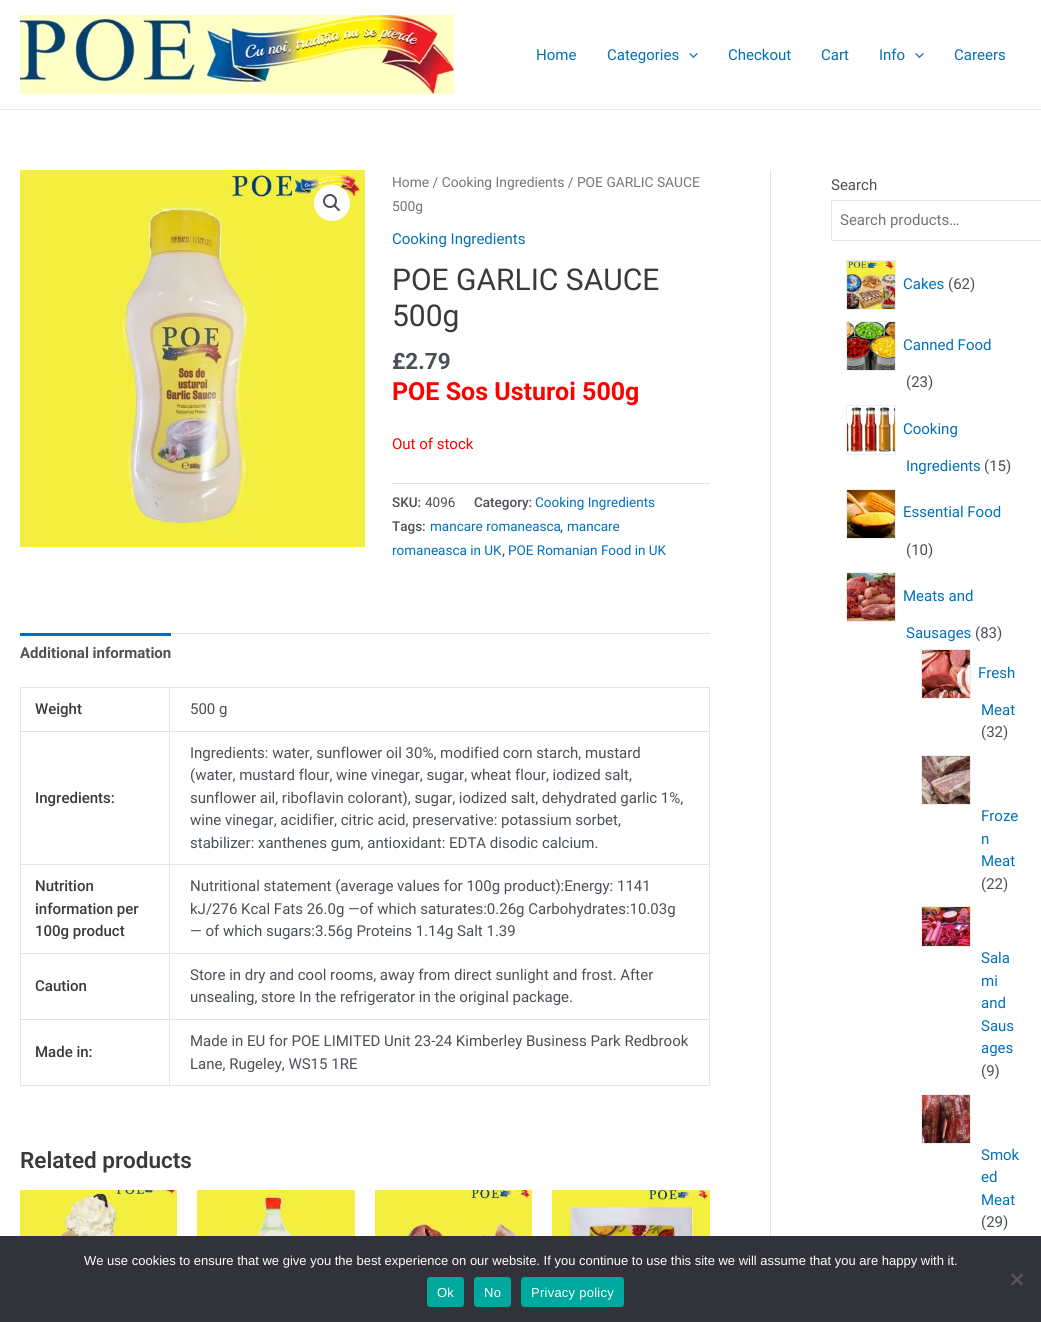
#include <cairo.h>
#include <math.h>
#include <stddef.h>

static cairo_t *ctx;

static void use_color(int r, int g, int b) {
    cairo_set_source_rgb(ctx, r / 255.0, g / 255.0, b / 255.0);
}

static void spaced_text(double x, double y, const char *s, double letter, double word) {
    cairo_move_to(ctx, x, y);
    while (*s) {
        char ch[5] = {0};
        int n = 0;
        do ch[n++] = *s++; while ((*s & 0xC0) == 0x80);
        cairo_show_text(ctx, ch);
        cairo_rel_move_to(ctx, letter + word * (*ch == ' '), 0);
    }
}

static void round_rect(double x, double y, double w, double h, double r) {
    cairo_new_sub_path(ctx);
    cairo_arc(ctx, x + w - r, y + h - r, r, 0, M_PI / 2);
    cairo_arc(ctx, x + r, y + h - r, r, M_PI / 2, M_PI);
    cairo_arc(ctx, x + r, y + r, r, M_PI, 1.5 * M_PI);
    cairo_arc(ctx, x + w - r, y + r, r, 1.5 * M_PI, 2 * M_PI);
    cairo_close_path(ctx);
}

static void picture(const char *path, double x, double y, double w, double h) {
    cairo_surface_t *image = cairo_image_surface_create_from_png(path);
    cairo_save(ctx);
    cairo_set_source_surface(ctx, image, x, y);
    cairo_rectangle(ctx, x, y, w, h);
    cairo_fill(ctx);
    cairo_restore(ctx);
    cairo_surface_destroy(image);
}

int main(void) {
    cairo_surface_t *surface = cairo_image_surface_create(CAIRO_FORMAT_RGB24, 1041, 1322);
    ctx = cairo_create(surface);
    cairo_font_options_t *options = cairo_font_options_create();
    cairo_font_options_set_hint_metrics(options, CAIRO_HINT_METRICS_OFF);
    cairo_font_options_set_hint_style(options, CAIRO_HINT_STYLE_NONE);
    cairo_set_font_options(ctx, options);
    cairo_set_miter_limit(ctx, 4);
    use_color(255, 255, 255);
    cairo_paint(ctx);
    use_color(234, 234, 234);
    cairo_rectangle(ctx, 0, 109, 1041, 1);
    cairo_fill(ctx);
    picture("img1.png", 20, 15, 434, 79);
    cairo_select_font_face(ctx, "Roboto", CAIRO_FONT_SLANT_NORMAL, CAIRO_FONT_WEIGHT_NORMAL);
    cairo_set_font_size(ctx, 15);
    use_color(1, 112, 185);
    cairo_move_to(ctx, 536, 60);
    cairo_show_text(ctx, "Home");
    cairo_move_to(ctx, 607, 60);
    cairo_show_text(ctx, "Categories");
    picture("img2.png", 689, 53, 9, 5);
    cairo_move_to(ctx, 728, 60);
    cairo_show_text(ctx, "Checkout");
    cairo_move_to(ctx, 821, 60);
    cairo_show_text(ctx, "Cart");
    cairo_move_to(ctx, 879, 60);
    cairo_show_text(ctx, "Info");
    picture("img2.png", 915, 53, 9, 5);
    cairo_move_to(ctx, 954, 60);
    cairo_show_text(ctx, "Careers");
    use_color(229, 229, 229);
    cairo_rectangle(ctx, 770, 170, 1, 1066);
    cairo_fill(ctx);
    picture("img3.png", 20, 170, 345, 377);
    use_color(255, 255, 255);
    cairo_arc(ctx, 332, 203, 18, 0, 2 * M_PI);
    cairo_fill(ctx);
    cairo_arc(ctx, 330, 201, 6, 0, 2 * M_PI);
    use_color(75, 79, 88);
    cairo_stroke(ctx);
    cairo_new_path(ctx);
    cairo_move_to(ctx, 334, 205);
    cairo_curve_to(ctx, 335, 204, 337, 206.5, 337.5, 207.5);
    cairo_curve_to(ctx, 338, 208, 341, 209.5, 339.5, 211);
    cairo_curve_to(ctx, 338.5, 212, 337, 209.5, 336, 208.5);
    cairo_curve_to(ctx, 335.5, 208, 333, 206.5, 334, 205);
    cairo_close_path(ctx);
    cairo_fill(ctx);
    cairo_set_font_size(ctx, 13.8);
    use_color(117, 117, 117);
    cairo_move_to(ctx, 392, 187);
    cairo_show_text(ctx, "Home / Cooking Ingredients / POE GARLIC SAUCE");
    cairo_move_to(ctx, 392, 211);
    cairo_show_text(ctx, "500g");
    cairo_set_font_size(ctx, 15);
    use_color(1, 112, 185);
    cairo_move_to(ctx, 392, 244);
    cairo_show_text(ctx, "Cooking Ingredients");
    cairo_set_font_size(ctx, 30);
    use_color(58, 58, 58);
    cairo_move_to(ctx, 392, 290);
    cairo_show_text(ctx, "POE GARLIC SAUCE");
    cairo_move_to(ctx, 392, 326);
    cairo_show_text(ctx, "500g");
    cairo_select_font_face(ctx, "Roboto", CAIRO_FONT_SLANT_NORMAL, CAIRO_FONT_WEIGHT_BOLD);
    cairo_set_font_size(ctx, 22.5);
    use_color(75, 79, 88);
    cairo_move_to(ctx, 392, 369);
    cairo_show_text(ctx, "£2.79");
    cairo_set_font_size(ctx, 25);
    use_color(255, 0, 0);
    cairo_move_to(ctx, 392, 400);
    cairo_show_text(ctx, "POE Sos Usturoi 500g");
    cairo_select_font_face(ctx, "Roboto", CAIRO_FONT_SLANT_NORMAL, CAIRO_FONT_WEIGHT_NORMAL);
    cairo_set_font_size(ctx, 15);
    cairo_move_to(ctx, 392, 449);
    cairo_show_text(ctx, "Out of stock");
    use_color(229, 229, 229);
    cairo_rectangle(ctx, 392, 483, 318, 1);
    cairo_fill(ctx);
    cairo_select_font_face(ctx, "Roboto Medium", CAIRO_FONT_SLANT_NORMAL, CAIRO_FONT_WEIGHT_NORMAL);
    cairo_set_font_size(ctx, 13.5);
    use_color(75, 79, 88);
    cairo_move_to(ctx, 392, 507);
    cairo_show_text(ctx, "SKU:");
    cairo_select_font_face(ctx, "Roboto", CAIRO_FONT_SLANT_NORMAL, CAIRO_FONT_WEIGHT_NORMAL);
    cairo_move_to(ctx, 425, 507);
    cairo_show_text(ctx, "4096");
    cairo_select_font_face(ctx, "Roboto Medium", CAIRO_FONT_SLANT_NORMAL, CAIRO_FONT_WEIGHT_NORMAL);
    cairo_move_to(ctx, 474, 507);
    cairo_show_text(ctx, "Category:");
    cairo_select_font_face(ctx, "Roboto", CAIRO_FONT_SLANT_NORMAL, CAIRO_FONT_WEIGHT_NORMAL);
    use_color(1, 112, 185);
    cairo_move_to(ctx, 535, 507);
    cairo_show_text(ctx, "Cooking Ingredients");
    cairo_select_font_face(ctx, "Roboto Medium", CAIRO_FONT_SLANT_NORMAL, CAIRO_FONT_WEIGHT_NORMAL);
    use_color(75, 79, 88);
    cairo_move_to(ctx, 392, 531);
    cairo_show_text(ctx, "Tags:");
    cairo_select_font_face(ctx, "Roboto", CAIRO_FONT_SLANT_NORMAL, CAIRO_FONT_WEIGHT_NORMAL);
    use_color(1, 112, 185);
    cairo_move_to(ctx, 430, 531);
    cairo_show_text(ctx, "mancare romaneasca");
    cairo_select_font_face(ctx, "Roboto Medium", CAIRO_FONT_SLANT_NORMAL, CAIRO_FONT_WEIGHT_NORMAL);
    use_color(75, 79, 88);
    cairo_move_to(ctx, 560, 531);
    cairo_show_text(ctx, ",");
    cairo_select_font_face(ctx, "Roboto", CAIRO_FONT_SLANT_NORMAL, CAIRO_FONT_WEIGHT_NORMAL);
    use_color(1, 112, 185);
    cairo_move_to(ctx, 567, 531);
    cairo_show_text(ctx, "mancare");
    cairo_move_to(ctx, 392, 555);
    cairo_show_text(ctx, "romaneasca in UK");
    cairo_select_font_face(ctx, "Roboto Medium", CAIRO_FONT_SLANT_NORMAL, CAIRO_FONT_WEIGHT_NORMAL);
    use_color(75, 79, 88);
    cairo_move_to(ctx, 502, 555);
    cairo_show_text(ctx, ",");
    cairo_select_font_face(ctx, "Roboto", CAIRO_FONT_SLANT_NORMAL, CAIRO_FONT_WEIGHT_NORMAL);
    use_color(1, 112, 185);
    cairo_move_to(ctx, 508, 555);
    cairo_show_text(ctx, "POE Romanian Food in UK");
    use_color(229, 229, 229);
    cairo_rectangle(ctx, 171, 633, 539, 1);
    cairo_fill(ctx);
    use_color(1, 112, 185);
    cairo_rectangle(ctx, 20, 633, 151, 3);
    cairo_fill(ctx);
    cairo_select_font_face(ctx, "Roboto", CAIRO_FONT_SLANT_NORMAL, CAIRO_FONT_WEIGHT_BOLD);
    cairo_set_font_size(ctx, 15);
    use_color(81, 81, 81);
    cairo_move_to(ctx, 20, 658);
    cairo_show_text(ctx, "Additional information");
    use_color(229, 229, 229);
    cairo_rectangle(ctx, 20, 687, 690, 1);
    cairo_fill(ctx);
    cairo_rectangle(ctx, 169, 688, 1, 398);
    cairo_fill(ctx);
    cairo_rectangle(ctx, 20, 731, 150, 1);
    cairo_fill(ctx);
    cairo_rectangle(ctx, 20, 688, 1, 44);
    cairo_fill(ctx);
    cairo_select_font_face(ctx, "Roboto Medium", CAIRO_FONT_SLANT_NORMAL, CAIRO_FONT_WEIGHT_NORMAL);
    use_color(58, 58, 58);
    cairo_move_to(ctx, 35, 714);
    cairo_show_text(ctx, "Weight");
    use_color(229, 229, 229);
    cairo_rectangle(ctx, 709, 688, 1, 398);
    cairo_fill(ctx);
    cairo_rectangle(ctx, 170, 731, 540, 1);
    cairo_fill(ctx);
    cairo_select_font_face(ctx, "Roboto", CAIRO_FONT_SLANT_NORMAL, CAIRO_FONT_WEIGHT_NORMAL);
    use_color(75, 79, 88);
    cairo_move_to(ctx, 190, 714);
    cairo_show_text(ctx, "500 g");
    use_color(229, 229, 229);
    cairo_rectangle(ctx, 20, 864, 690, 1);
    cairo_fill(ctx);
    cairo_rectangle(ctx, 20, 732, 1, 133);
    cairo_fill(ctx);
    cairo_select_font_face(ctx, "Roboto Medium", CAIRO_FONT_SLANT_NORMAL, CAIRO_FONT_WEIGHT_NORMAL);
    use_color(58, 58, 58);
    cairo_move_to(ctx, 35, 803);
    cairo_show_text(ctx, "Ingredients:");
    cairo_select_font_face(ctx, "Roboto", CAIRO_FONT_SLANT_NORMAL, CAIRO_FONT_WEIGHT_NORMAL);
    use_color(75, 79, 88);
    cairo_move_to(ctx, 190, 758);
    cairo_show_text(ctx, "Ingredients: water, sunflower oil 30%, modified corn starch, mustard");
    cairo_move_to(ctx, 190, 780);
    cairo_show_text(ctx, "(water, mustard flour, wine vinegar, sugar, wheat flour, iodized salt,");
    cairo_move_to(ctx, 190, 803);
    cairo_show_text(ctx, "sunflower ail, riboflavin colorant), sugar, iodized salt, dehydrated garlic 1%,");
    cairo_move_to(ctx, 190, 825);
    cairo_show_text(ctx, "wine vinegar, acidifier, citric acid, preservative: potassium sorbet,");
    cairo_move_to(ctx, 190, 848);
    cairo_show_text(ctx, "stabilizer: xanthenes gum, antioxidant: EDTA disodic calcium.");
    use_color(229, 229, 229);
    cairo_rectangle(ctx, 20, 953, 690, 1);
    cairo_fill(ctx);
    cairo_rectangle(ctx, 20, 865, 1, 89);
    cairo_fill(ctx);
    cairo_select_font_face(ctx, "Roboto Medium", CAIRO_FONT_SLANT_NORMAL, CAIRO_FONT_WEIGHT_NORMAL);
    use_color(58, 58, 58);
    cairo_move_to(ctx, 35, 891);
    cairo_show_text(ctx, "Nutrition");
    cairo_move_to(ctx, 35, 914);
    cairo_show_text(ctx, "information per");
    cairo_move_to(ctx, 35, 936);
    cairo_show_text(ctx, "100g product");
    cairo_select_font_face(ctx, "Roboto", CAIRO_FONT_SLANT_NORMAL, CAIRO_FONT_WEIGHT_NORMAL);
    use_color(75, 79, 88);
    cairo_move_to(ctx, 190, 891);
    cairo_show_text(ctx, "Nutritional statement (average values for 100g product):Energy: 1141");
    cairo_move_to(ctx, 190, 914);
    cairo_show_text(ctx, "kJ/276 Kcal Fats 26.0g —of which saturates:0.26g Carbohydrates:10.03g");
    cairo_move_to(ctx, 190, 936);
    cairo_show_text(ctx, "— of which sugars:3.56g Proteins 1.14g Salt 1.39");
    use_color(229, 229, 229);
    cairo_rectangle(ctx, 20, 1019, 690, 1);
    cairo_fill(ctx);
    cairo_rectangle(ctx, 20, 954, 1, 66);
    cairo_fill(ctx);
    cairo_select_font_face(ctx, "Roboto Medium", CAIRO_FONT_SLANT_NORMAL, CAIRO_FONT_WEIGHT_NORMAL);
    use_color(58, 58, 58);
    cairo_move_to(ctx, 35, 991);
    cairo_show_text(ctx, "Caution");
    cairo_select_font_face(ctx, "Roboto", CAIRO_FONT_SLANT_NORMAL, CAIRO_FONT_WEIGHT_NORMAL);
    use_color(75, 79, 88);
    cairo_move_to(ctx, 190, 980);
    cairo_show_text(ctx, "Store in dry and cool rooms, away from direct sunlight and frost. After");
    cairo_move_to(ctx, 190, 1002);
    cairo_show_text(ctx, "unsealing, store In the refrigerator in the original package.");
    use_color(229, 229, 229);
    cairo_rectangle(ctx, 20, 1085, 690, 1);
    cairo_fill(ctx);
    cairo_rectangle(ctx, 20, 1020, 1, 66);
    cairo_fill(ctx);
    cairo_select_font_face(ctx, "Roboto Medium", CAIRO_FONT_SLANT_NORMAL, CAIRO_FONT_WEIGHT_NORMAL);
    use_color(58, 58, 58);
    cairo_move_to(ctx, 35, 1057);
    cairo_show_text(ctx, "Made in:");
    cairo_select_font_face(ctx, "Roboto", CAIRO_FONT_SLANT_NORMAL, CAIRO_FONT_WEIGHT_NORMAL);
    use_color(75, 79, 88);
    cairo_move_to(ctx, 190, 1046);
    cairo_show_text(ctx, "Made in EU for POE LIMITED Unit 23-24 Kimberley Business Park Redbrook");
    cairo_move_to(ctx, 190, 1069);
    cairo_show_text(ctx, "Lane, Rugeley, WS15 1RE");
    cairo_select_font_face(ctx, "Roboto SemiBold", CAIRO_FONT_SLANT_NORMAL, CAIRO_FONT_WEIGHT_NORMAL);
    cairo_set_font_size(ctx, 22.5);
    use_color(58, 58, 58);
    cairo_move_to(ctx, 20, 1168);
    cairo_show_text(ctx, "Related products");
    picture("img4.png", 20, 1190, 157, 46);
    picture("img5.png", 197, 1190, 158, 46);
    picture("img6.png", 375, 1190, 157, 46);
    picture("img7.png", 552, 1190, 158, 46);
    cairo_select_font_face(ctx, "Roboto", CAIRO_FONT_SLANT_NORMAL, CAIRO_FONT_WEIGHT_NORMAL);
    cairo_set_font_size(ctx, 15);
    use_color(75, 79, 88);
    cairo_move_to(ctx, 831, 190);
    cairo_show_text(ctx, "Search");
    cairo_rectangle(ctx, 831.5, 200.5, 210, 40);
    use_color(229, 229, 229);
    cairo_set_line_width(ctx, 1);
    cairo_stroke(ctx);
    use_color(117, 117, 117);
    cairo_move_to(ctx, 840, 225);
    cairo_show_text(ctx, "Search products…");
    cairo_rectangle(ctx, 846.5, 260.5, 49, 49);
    use_color(238, 238, 238);
    cairo_stroke(ctx);
    picture("img8.png", 847, 261, 48, 48);
    use_color(1, 112, 185);
    cairo_move_to(ctx, 903, 289);
    cairo_show_text(ctx, "Cakes");
    use_color(75, 79, 88);
    cairo_move_to(ctx, 948, 289);
    cairo_show_text(ctx, "(62)");
    cairo_rectangle(ctx, 846.5, 321.5, 49, 49);
    use_color(238, 238, 238);
    cairo_stroke(ctx);
    picture("img9.png", 847, 322, 48, 48);
    use_color(1, 112, 185);
    cairo_move_to(ctx, 903, 350);
    cairo_show_text(ctx, "Canned Food");
    use_color(75, 79, 88);
    cairo_move_to(ctx, 906, 387);
    cairo_show_text(ctx, "(23)");
    cairo_rectangle(ctx, 846.5, 405.5, 49, 49);
    use_color(238, 238, 238);
    cairo_stroke(ctx);
    picture("img10.png", 847, 407, 48, 45);
    use_color(1, 112, 185);
    cairo_move_to(ctx, 903, 434);
    cairo_show_text(ctx, "Cooking");
    cairo_move_to(ctx, 906, 471);
    cairo_show_text(ctx, "Ingredients");
    use_color(75, 79, 88);
    cairo_move_to(ctx, 984, 471);
    cairo_show_text(ctx, "(15)");
    cairo_rectangle(ctx, 846.5, 489.5, 49, 49);
    use_color(238, 238, 238);
    cairo_stroke(ctx);
    picture("img11.png", 847, 490, 48, 48);
    use_color(1, 112, 185);
    cairo_move_to(ctx, 903, 517);
    cairo_show_text(ctx, "Essential Food");
    use_color(75, 79, 88);
    cairo_move_to(ctx, 906, 555);
    cairo_show_text(ctx, "(10)");
    cairo_rectangle(ctx, 846.5, 572.5, 49, 49);
    use_color(238, 238, 238);
    cairo_stroke(ctx);
    picture("img12.png", 847, 573, 48, 48);
    use_color(1, 112, 185);
    cairo_move_to(ctx, 903, 601);
    cairo_show_text(ctx, "Meats and");
    cairo_move_to(ctx, 906, 638);
    cairo_show_text(ctx, "Sausages");
    use_color(75, 79, 88);
    cairo_move_to(ctx, 975, 638);
    cairo_show_text(ctx, "(83)");
    cairo_rectangle(ctx, 921.5, 649.5, 49, 49);
    use_color(238, 238, 238);
    cairo_stroke(ctx);
    picture("img13.png", 922, 650, 48, 48);
    use_color(1, 112, 185);
    cairo_move_to(ctx, 978, 678);
    cairo_show_text(ctx, "Fresh");
    cairo_move_to(ctx, 981, 715);
    cairo_show_text(ctx, "Meat");
    use_color(75, 79, 88);
    cairo_move_to(ctx, 981, 737);
    cairo_show_text(ctx, "(32)");
    cairo_rectangle(ctx, 921.5, 755.5, 49, 49);
    use_color(238, 238, 238);
    cairo_stroke(ctx);
    picture("img14.png", 922, 756, 48, 48);
    use_color(1, 112, 185);
    cairo_move_to(ctx, 981, 821);
    cairo_show_text(ctx, "Froze");
    cairo_move_to(ctx, 981, 844);
    cairo_show_text(ctx, "n");
    cairo_move_to(ctx, 981, 866);
    cairo_show_text(ctx, "Meat");
    use_color(75, 79, 88);
    cairo_move_to(ctx, 981, 889);
    cairo_show_text(ctx, "(22)");
    cairo_rectangle(ctx, 921.5, 906.5, 49, 40);
    use_color(238, 238, 238);
    cairo_stroke(ctx);
    picture("img15.png", 922, 907, 48, 39);
    use_color(1, 112, 185);
    cairo_move_to(ctx, 981, 963);
    cairo_show_text(ctx, "Sala");
    cairo_move_to(ctx, 981, 986);
    cairo_show_text(ctx, "mi");
    cairo_move_to(ctx, 981, 1008);
    cairo_show_text(ctx, "and");
    cairo_move_to(ctx, 981, 1031);
    cairo_show_text(ctx, "Saus");
    cairo_move_to(ctx, 981, 1053);
    cairo_show_text(ctx, "ages");
    use_color(75, 79, 88);
    cairo_move_to(ctx, 981, 1076);
    cairo_show_text(ctx, "(9)");
    cairo_rectangle(ctx, 921.5, 1094.5, 49, 49);
    use_color(238, 238, 238);
    cairo_stroke(ctx);
    picture("img16.png", 922, 1095, 48, 48);
    use_color(1, 112, 185);
    cairo_move_to(ctx, 981, 1160);
    cairo_show_text(ctx, "Smok");
    cairo_move_to(ctx, 981, 1182);
    cairo_show_text(ctx, "ed");
    cairo_move_to(ctx, 981, 1205);
    cairo_show_text(ctx, "Meat");
    use_color(75, 79, 88);
    cairo_move_to(ctx, 981, 1227);
    cairo_show_text(ctx, "(29)");
    use_color(50, 50, 58);
    cairo_rectangle(ctx, 0, 1236, 1041, 86);
    cairo_fill(ctx);
    cairo_select_font_face(ctx, "Liberation Sans", CAIRO_FONT_SLANT_NORMAL, CAIRO_FONT_WEIGHT_NORMAL);
    cairo_set_font_size(ctx, 13);
    use_color(255, 255, 255);
    cairo_move_to(ctx, 84, 1265);
    cairo_show_text(ctx, "We use cookies to ensure that we give you the best experience on our website. If you continue to use this site we will assume that you are happy with it.");
    use_color(89, 89, 93);
    cairo_new_path(ctx);
    cairo_move_to(ctx, 1021.5, 1273.5);
    cairo_line_to(ctx, 1023, 1275);
    cairo_line_to(ctx, 1012.5, 1285.5);
    cairo_line_to(ctx, 1011, 1284);
    cairo_close_path(ctx);
    cairo_fill(ctx);
    cairo_new_path(ctx);
    cairo_move_to(ctx, 1011, 1275);
    cairo_line_to(ctx, 1012.5, 1273.5);
    cairo_line_to(ctx, 1023, 1284);
    cairo_line_to(ctx, 1021.5, 1285.5);
    cairo_close_path(ctx);
    cairo_fill(ctx);
    use_color(0, 169, 157);
    round_rect(427, 1277, 37, 30, 3);
    cairo_fill(ctx);
    use_color(255, 255, 255);
    spaced_text(437, 1297, "Ok", 0.25, 0);
    use_color(0, 169, 157);
    round_rect(474, 1277, 37, 30, 3);
    cairo_fill(ctx);
    use_color(255, 255, 255);
    spaced_text(484, 1297, "No", 0.25, 0);
    use_color(0, 169, 157);
    round_rect(521, 1277, 103, 30, 3);
    cairo_fill(ctx);
    use_color(255, 255, 255);
    spaced_text(531, 1297, "Privacy policy", 0.25, 0);
    cairo_surface_write_to_png(surface, "result.png");
    cairo_font_options_destroy(options);
    cairo_destroy(ctx);
    cairo_surface_destroy(surface);
    return 0;
}
